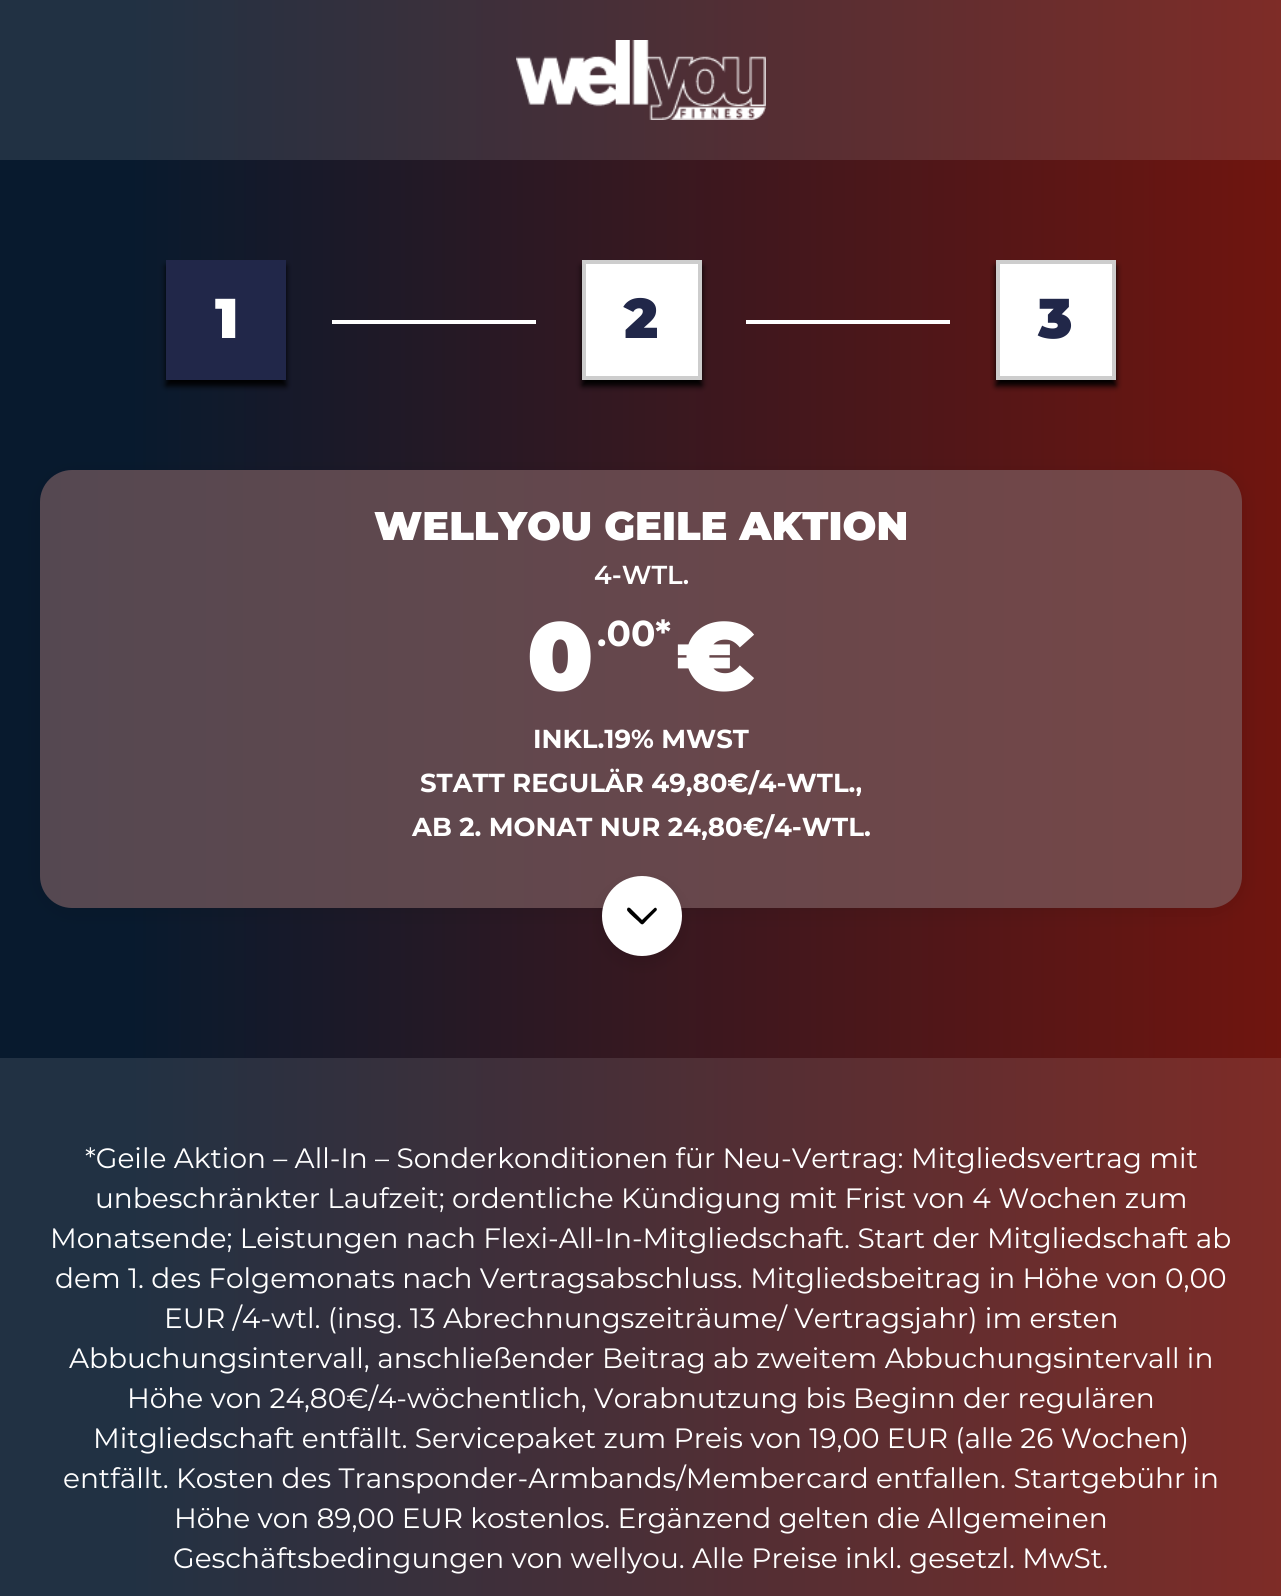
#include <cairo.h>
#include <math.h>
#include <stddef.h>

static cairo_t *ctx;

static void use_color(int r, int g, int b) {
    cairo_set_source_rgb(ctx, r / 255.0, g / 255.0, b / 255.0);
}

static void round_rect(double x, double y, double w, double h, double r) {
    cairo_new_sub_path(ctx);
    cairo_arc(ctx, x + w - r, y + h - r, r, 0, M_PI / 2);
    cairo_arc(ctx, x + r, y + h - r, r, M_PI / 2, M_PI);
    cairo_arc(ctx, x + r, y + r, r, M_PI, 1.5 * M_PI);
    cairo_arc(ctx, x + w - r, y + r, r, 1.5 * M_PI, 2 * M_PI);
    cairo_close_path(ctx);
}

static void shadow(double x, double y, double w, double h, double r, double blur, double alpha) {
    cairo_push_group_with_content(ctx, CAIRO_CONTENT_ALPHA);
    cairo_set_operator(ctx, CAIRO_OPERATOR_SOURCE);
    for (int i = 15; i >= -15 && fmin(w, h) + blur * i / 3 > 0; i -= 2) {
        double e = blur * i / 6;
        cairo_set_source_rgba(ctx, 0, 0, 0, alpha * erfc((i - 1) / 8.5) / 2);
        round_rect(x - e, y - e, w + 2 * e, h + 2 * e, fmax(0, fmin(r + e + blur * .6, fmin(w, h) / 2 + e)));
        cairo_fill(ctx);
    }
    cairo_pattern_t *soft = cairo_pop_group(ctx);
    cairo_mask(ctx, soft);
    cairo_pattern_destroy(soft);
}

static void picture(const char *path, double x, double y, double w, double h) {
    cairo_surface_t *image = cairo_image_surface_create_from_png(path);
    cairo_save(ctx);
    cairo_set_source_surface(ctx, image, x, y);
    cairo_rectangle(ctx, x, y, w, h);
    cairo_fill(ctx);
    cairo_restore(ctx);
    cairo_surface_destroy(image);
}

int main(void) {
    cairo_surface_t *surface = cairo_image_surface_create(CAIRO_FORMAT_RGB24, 1281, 1596);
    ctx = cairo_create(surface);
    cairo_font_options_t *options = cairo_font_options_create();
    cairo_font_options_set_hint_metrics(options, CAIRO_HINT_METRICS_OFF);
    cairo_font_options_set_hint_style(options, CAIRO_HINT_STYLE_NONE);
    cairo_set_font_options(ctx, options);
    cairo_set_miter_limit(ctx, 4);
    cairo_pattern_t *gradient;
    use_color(255, 255, 255);
    cairo_paint(ctx);
    gradient = cairo_pattern_create_linear(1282, 1030, 0, 1030);
    cairo_pattern_add_color_stop_rgba(gradient, 0, 0.439, 0.082, 0.059, 1);
    cairo_pattern_add_color_stop_rgba(gradient, 0.9, 0.031, 0.102, 0.18, 1);
    cairo_set_source(ctx, gradient);
    cairo_pattern_destroy(gradient);
    cairo_rectangle(ctx, 0, 160, 1281, 898);
    cairo_fill(ctx);
    gradient = cairo_pattern_create_linear(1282, 1030, 0, 1030);
    cairo_pattern_add_color_stop_rgba(gradient, 0, 0.494, 0.173, 0.153, 1);
    cairo_pattern_add_color_stop_rgba(gradient, 0.9, 0.129, 0.192, 0.263, 1);
    cairo_set_source(ctx, gradient);
    cairo_pattern_destroy(gradient);
    cairo_rectangle(ctx, 0, 1058, 1281, 538);
    cairo_fill(ctx);
    cairo_rectangle(ctx, 0, 0, 1281, 160);
    cairo_fill(ctx);
    picture("img1.png", 516, 40, 250, 80);
    use_color(0, 0, 0);
    shadow(166, 266, 120, 120, 0, 3, 1);
    use_color(33, 39, 73);
    cairo_rectangle(ctx, 166, 260, 120, 120);
    cairo_fill(ctx);
    cairo_select_font_face(ctx, "Montserrat Black", CAIRO_FONT_SLANT_NORMAL, CAIRO_FONT_WEIGHT_NORMAL);
    cairo_set_font_size(ctx, 56);
    use_color(255, 255, 255);
    cairo_move_to(ctx, 215, 338);
    cairo_show_text(ctx, "1");
    cairo_rectangle(ctx, 332, 320, 204, 4);
    cairo_fill(ctx);
    use_color(0, 0, 0);
    shadow(582, 266, 120, 120, 0, 3, 1);
    use_color(255, 255, 255);
    cairo_rectangle(ctx, 584, 262, 116, 116);
    cairo_fill_preserve(ctx);
    use_color(205, 205, 205);
    cairo_set_line_width(ctx, 4);
    cairo_stroke(ctx);
    use_color(33, 39, 73);
    cairo_move_to(ctx, 624, 338);
    cairo_show_text(ctx, "2");
    use_color(255, 255, 255);
    cairo_rectangle(ctx, 746, 320, 204, 4);
    cairo_fill(ctx);
    use_color(0, 0, 0);
    shadow(996, 266, 120, 120, 0, 3, 1);
    use_color(255, 255, 255);
    cairo_rectangle(ctx, 998, 262, 116, 116);
    cairo_fill_preserve(ctx);
    use_color(205, 205, 205);
    cairo_stroke(ctx);
    use_color(33, 39, 73);
    cairo_move_to(ctx, 1038, 338);
    cairo_show_text(ctx, "3");
    use_color(0, 0, 0);
    shadow(40, 474, 1202, 438, 32, 10, 0.1);
    gradient = cairo_pattern_create_linear(40, 689, 1242, 689);
    cairo_pattern_add_color_stop_rgba(gradient, 0, 0.333, 0.282, 0.318, 1);
    cairo_pattern_add_color_stop_rgba(gradient, 1, 0.463, 0.278, 0.278, 1);
    cairo_set_source(ctx, gradient);
    cairo_pattern_destroy(gradient);
    round_rect(40, 470, 1202, 438, 32);
    cairo_fill(ctx);
    cairo_set_font_size(ctx, 40);
    use_color(255, 255, 255);
    cairo_move_to(ctx, 374, 540);
    cairo_show_text(ctx, "WELLYOU GEILE AKTION");
    cairo_select_font_face(ctx, "Montserrat SemiBold", CAIRO_FONT_SLANT_NORMAL, CAIRO_FONT_WEIGHT_NORMAL);
    cairo_set_font_size(ctx, 26);
    cairo_move_to(ctx, 594, 584);
    cairo_show_text(ctx, "4-WTL.");
    cairo_select_font_face(ctx, "Montserrat Black", CAIRO_FONT_SLANT_NORMAL, CAIRO_FONT_WEIGHT_NORMAL);
    cairo_set_font_size(ctx, 96);
    cairo_move_to(ctx, 527, 690);
    cairo_show_text(ctx, "0");
    cairo_select_font_face(ctx, "Montserrat", CAIRO_FONT_SLANT_NORMAL, CAIRO_FONT_WEIGHT_BOLD);
    cairo_set_font_size(ctx, 36);
    cairo_move_to(ctx, 597, 646);
    cairo_show_text(ctx, ".00*");
    cairo_select_font_face(ctx, "Montserrat Black", CAIRO_FONT_SLANT_NORMAL, CAIRO_FONT_WEIGHT_NORMAL);
    cairo_set_font_size(ctx, 96);
    cairo_move_to(ctx, 675, 690);
    cairo_show_text(ctx, "€");
    cairo_select_font_face(ctx, "Montserrat", CAIRO_FONT_SLANT_NORMAL, CAIRO_FONT_WEIGHT_BOLD);
    cairo_set_font_size(ctx, 26);
    cairo_move_to(ctx, 533, 748);
    cairo_show_text(ctx, "INKL.19% MWST");
    cairo_move_to(ctx, 420, 792);
    cairo_show_text(ctx, "STATT REGULÄR 49,80€/4-WTL.,");
    cairo_move_to(ctx, 412, 836);
    cairo_show_text(ctx, "AB 2. MONAT NUR 24,80€/4-WTL.");
    use_color(0, 0, 0);
    shadow(602, 884, 80, 80, 40, 8, 0.1);
    use_color(255, 255, 255);
    cairo_arc(ctx, 642, 916, 40, 0, 2 * M_PI);
    cairo_fill(ctx);
    use_color(0, 0, 0);
    cairo_new_path(ctx);
    cairo_move_to(ctx, 627, 909.5);
    cairo_line_to(ctx, 627.5, 908);
    cairo_curve_to(ctx, 628, 907.5, 629, 907.5, 630, 908);
    cairo_line_to(ctx, 642, 920);
    cairo_line_to(ctx, 654.5, 908);
    cairo_curve_to(ctx, 656, 907, 657.5, 909, 656.5, 910.5);
    cairo_line_to(ctx, 647.5, 919.5);
    cairo_curve_to(ctx, 642.5, 924.5, 643, 926.5, 638.5, 921.5);
    cairo_line_to(ctx, 634, 917.5);
    cairo_curve_to(ctx, 632.5, 916, 626.5, 911, 627, 909.5);
    cairo_close_path(ctx);
    cairo_fill(ctx);
    cairo_select_font_face(ctx, "Montserrat", CAIRO_FONT_SLANT_NORMAL, CAIRO_FONT_WEIGHT_NORMAL);
    cairo_set_font_size(ctx, 28);
    use_color(255, 255, 255);
    cairo_move_to(ctx, 85, 1168);
    cairo_show_text(ctx, "*Geile Aktion – All-In – Sonderkonditionen für Neu-Vertrag: Mitgliedsvertrag mit");
    cairo_move_to(ctx, 95, 1208);
    cairo_show_text(ctx, "unbeschränkter Laufzeit; ordentliche Kündigung mit Frist von 4 Wochen zum");
    cairo_move_to(ctx, 50, 1248);
    cairo_show_text(ctx, "Monatsende; Leistungen nach Flexi-All-In-Mitgliedschaft. Start der Mitgliedschaft ab");
    cairo_move_to(ctx, 55, 1288);
    cairo_show_text(ctx, "dem 1. des Folgemonats nach Vertragsabschluss. Mitgliedsbeitrag in Höhe von 0,00");
    cairo_move_to(ctx, 164, 1328);
    cairo_show_text(ctx, "EUR /4-wtl. (insg. 13 Abrechnungszeiträume/ Vertragsjahr) im ersten");
    cairo_move_to(ctx, 69, 1368);
    cairo_show_text(ctx, "Abbuchungsintervall, anschließender Beitrag ab zweitem Abbuchungsintervall in");
    cairo_move_to(ctx, 127, 1408);
    cairo_show_text(ctx, "Höhe von 24,80€/4-wöchentlich, Vorabnutzung bis Beginn der regulären");
    cairo_move_to(ctx, 93, 1448);
    cairo_show_text(ctx, "Mitgliedschaft entfällt. Servicepaket zum Preis von 19,00 EUR (alle 26 Wochen)");
    cairo_move_to(ctx, 63, 1488);
    cairo_show_text(ctx, "entfällt. Kosten des Transponder-Armbands/Membercard entfallen. Startgebühr in");
    cairo_move_to(ctx, 174, 1528);
    cairo_show_text(ctx, "Höhe von 89,00 EUR kostenlos. Ergänzend gelten die Allgemeinen");
    cairo_move_to(ctx, 173, 1568);
    cairo_show_text(ctx, "Geschäftsbedingungen von wellyou. Alle Preise inkl. gesetzl. MwSt.");
    cairo_surface_write_to_png(surface, "result.png");
    cairo_font_options_destroy(options);
    cairo_destroy(ctx);
    cairo_surface_destroy(surface);
    return 0;
}
